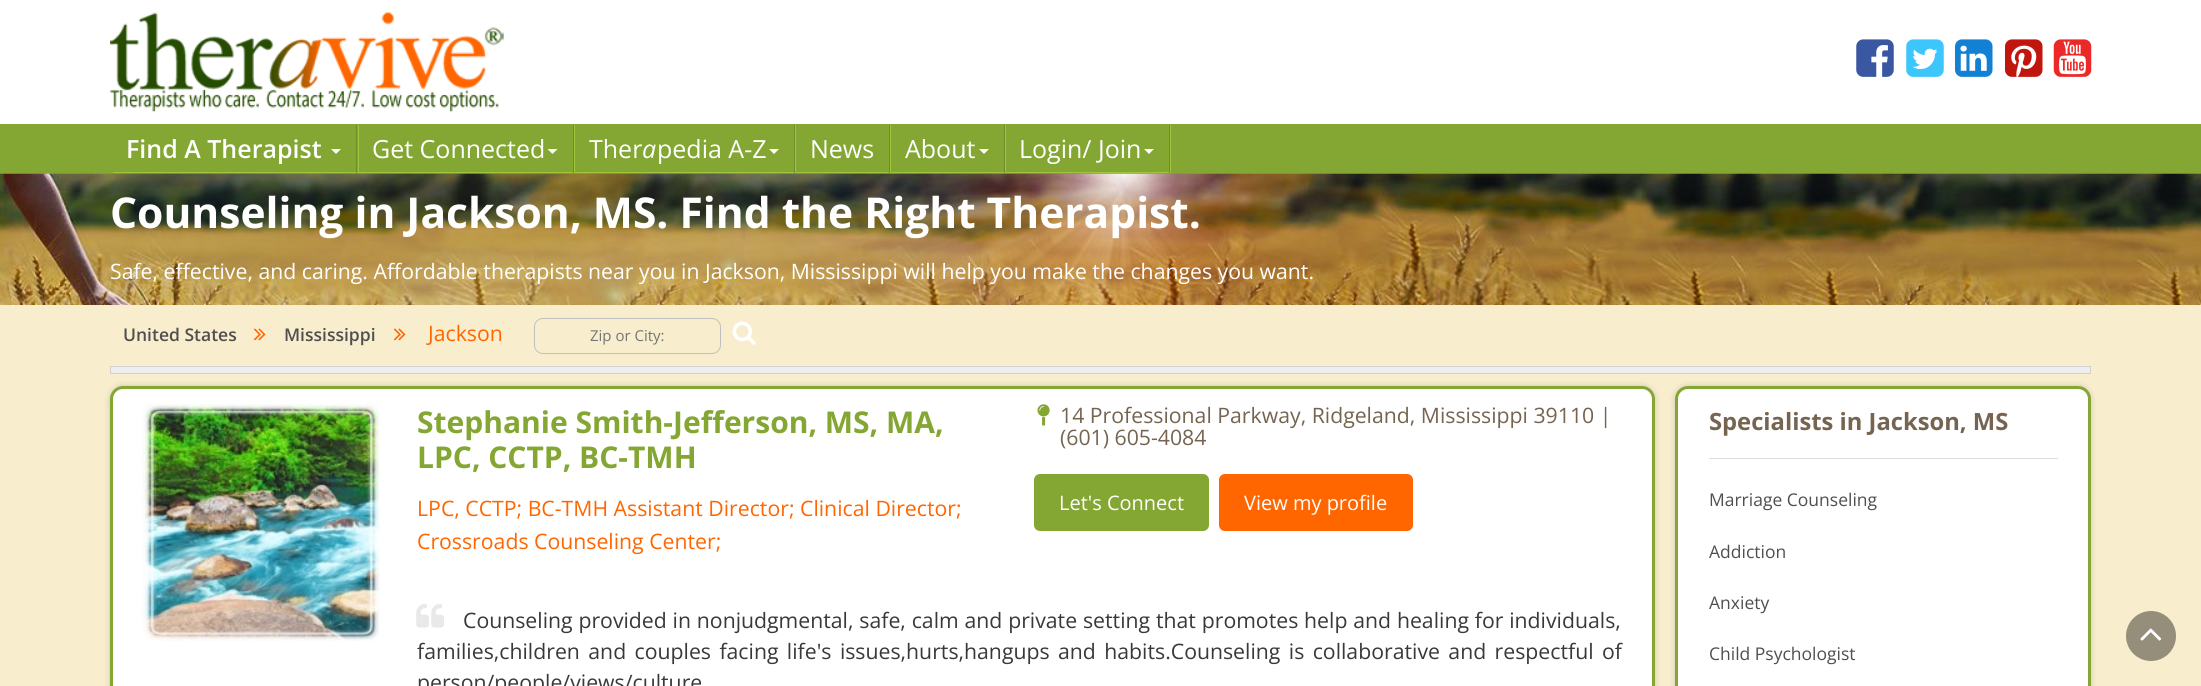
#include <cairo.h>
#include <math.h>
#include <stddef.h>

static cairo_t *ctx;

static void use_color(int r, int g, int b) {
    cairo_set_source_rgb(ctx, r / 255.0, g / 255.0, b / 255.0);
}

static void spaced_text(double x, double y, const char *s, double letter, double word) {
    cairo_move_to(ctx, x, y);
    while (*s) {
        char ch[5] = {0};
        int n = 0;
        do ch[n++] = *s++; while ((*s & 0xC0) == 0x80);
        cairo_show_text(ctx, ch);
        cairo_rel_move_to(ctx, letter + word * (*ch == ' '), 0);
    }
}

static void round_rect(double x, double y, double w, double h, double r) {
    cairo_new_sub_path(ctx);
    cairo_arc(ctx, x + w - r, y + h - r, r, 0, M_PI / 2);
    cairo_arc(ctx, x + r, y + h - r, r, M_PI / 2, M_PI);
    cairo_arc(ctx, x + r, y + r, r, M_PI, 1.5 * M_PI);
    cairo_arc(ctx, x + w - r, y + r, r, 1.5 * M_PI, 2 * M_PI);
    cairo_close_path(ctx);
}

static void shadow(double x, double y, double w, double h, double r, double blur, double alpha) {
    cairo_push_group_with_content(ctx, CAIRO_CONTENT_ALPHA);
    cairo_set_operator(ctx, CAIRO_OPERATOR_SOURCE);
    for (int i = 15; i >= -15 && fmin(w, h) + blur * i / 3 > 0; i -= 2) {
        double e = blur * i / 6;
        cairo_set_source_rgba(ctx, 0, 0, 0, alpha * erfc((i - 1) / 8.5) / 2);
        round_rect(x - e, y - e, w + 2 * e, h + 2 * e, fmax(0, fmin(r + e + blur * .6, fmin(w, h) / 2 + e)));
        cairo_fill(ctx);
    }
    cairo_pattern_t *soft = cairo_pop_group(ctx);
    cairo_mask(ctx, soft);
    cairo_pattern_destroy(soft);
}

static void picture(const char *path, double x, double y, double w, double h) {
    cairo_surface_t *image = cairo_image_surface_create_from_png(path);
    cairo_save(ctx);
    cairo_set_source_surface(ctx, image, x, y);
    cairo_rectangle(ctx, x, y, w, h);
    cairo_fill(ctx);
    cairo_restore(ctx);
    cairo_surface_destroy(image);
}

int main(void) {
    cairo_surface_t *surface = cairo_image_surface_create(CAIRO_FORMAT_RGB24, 2201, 686);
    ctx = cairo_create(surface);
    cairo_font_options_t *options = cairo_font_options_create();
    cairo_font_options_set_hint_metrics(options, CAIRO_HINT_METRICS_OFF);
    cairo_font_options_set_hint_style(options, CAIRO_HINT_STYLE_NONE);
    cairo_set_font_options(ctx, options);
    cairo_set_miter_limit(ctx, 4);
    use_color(248, 237, 205);
    cairo_paint(ctx);
    use_color(255, 255, 255);
    cairo_rectangle(ctx, 0, 0, 2201, 124);
    cairo_fill(ctx);
    picture("img1.png", 110, 12, 394, 100);
    picture("img2.png", 1856, 39, 38, 38);
    picture("img3.png", 1906, 39, 38, 38);
    picture("img4.png", 1955, 39, 38, 38);
    picture("img5.png", 2005, 39, 38, 38);
    picture("img6.png", 2053, 39, 39, 38);
    use_color(132, 166, 50);
    cairo_rectangle(ctx, 0, 124, 2201, 50);
    cairo_fill(ctx);
    use_color(157, 198, 59);
    cairo_new_path(ctx);
    cairo_move_to(ctx, 113, 172);
    cairo_line_to(ctx, 113, 173);
    cairo_line_to(ctx, 359, 173);
    cairo_line_to(ctx, 359, 125);
    cairo_line_to(ctx, 358, 125);
    cairo_line_to(ctx, 358, 172);
    cairo_close_path(ctx);
    cairo_fill(ctx);
    use_color(112, 141, 43);
    cairo_rectangle(ctx, 356, 125, 1, 48);
    cairo_fill(ctx);
    cairo_select_font_face(ctx, "Open Sans SemiBold", CAIRO_FONT_SLANT_NORMAL, CAIRO_FONT_WEIGHT_NORMAL);
    cairo_set_font_size(ctx, 25);
    use_color(255, 255, 255);
    cairo_move_to(ctx, 126, 158);
    cairo_show_text(ctx, "Find A Therapist");
    cairo_new_path(ctx);
    cairo_move_to(ctx, 331, 149);
    cairo_line_to(ctx, 341, 149);
    cairo_line_to(ctx, 336, 154);
    cairo_close_path(ctx);
    cairo_fill(ctx);
    use_color(157, 198, 59);
    cairo_new_path(ctx);
    cairo_move_to(ctx, 359, 172);
    cairo_line_to(ctx, 359, 173);
    cairo_line_to(ctx, 575, 173);
    cairo_line_to(ctx, 575, 125);
    cairo_line_to(ctx, 574, 125);
    cairo_line_to(ctx, 574, 172);
    cairo_close_path(ctx);
    cairo_fill(ctx);
    use_color(112, 141, 43);
    cairo_rectangle(ctx, 573, 125, 1, 48);
    cairo_fill(ctx);
    cairo_select_font_face(ctx, "Open Sans", CAIRO_FONT_SLANT_NORMAL, CAIRO_FONT_WEIGHT_NORMAL);
    use_color(255, 255, 255);
    cairo_move_to(ctx, 372, 158);
    cairo_show_text(ctx, "Get Connected");
    cairo_new_path(ctx);
    cairo_move_to(ctx, 547.5, 149);
    cairo_line_to(ctx, 557.5, 149);
    cairo_line_to(ctx, 552.5, 154);
    cairo_close_path(ctx);
    cairo_fill(ctx);
    use_color(157, 198, 59);
    cairo_new_path(ctx);
    cairo_move_to(ctx, 575, 172);
    cairo_line_to(ctx, 575, 173);
    cairo_line_to(ctx, 796, 173);
    cairo_line_to(ctx, 796, 125);
    cairo_line_to(ctx, 795, 125);
    cairo_line_to(ctx, 795, 172);
    cairo_close_path(ctx);
    cairo_fill(ctx);
    use_color(112, 141, 43);
    cairo_rectangle(ctx, 794, 125, 1, 48);
    cairo_fill(ctx);
    use_color(255, 255, 255);
    cairo_move_to(ctx, 589, 158);
    cairo_show_text(ctx, "Ther");
    cairo_select_font_face(ctx, "Open Sans", CAIRO_FONT_SLANT_ITALIC, CAIRO_FONT_WEIGHT_NORMAL);
    cairo_move_to(ctx, 642, 158);
    cairo_show_text(ctx, "a");
    cairo_select_font_face(ctx, "Open Sans", CAIRO_FONT_SLANT_NORMAL, CAIRO_FONT_WEIGHT_NORMAL);
    cairo_move_to(ctx, 657, 158);
    cairo_show_text(ctx, "pedia A-Z");
    cairo_new_path(ctx);
    cairo_move_to(ctx, 769, 149);
    cairo_line_to(ctx, 779, 149);
    cairo_line_to(ctx, 774, 154);
    cairo_close_path(ctx);
    cairo_fill(ctx);
    use_color(157, 198, 59);
    cairo_new_path(ctx);
    cairo_move_to(ctx, 796, 172);
    cairo_line_to(ctx, 796, 173);
    cairo_line_to(ctx, 891, 173);
    cairo_line_to(ctx, 891, 125);
    cairo_line_to(ctx, 890, 125);
    cairo_line_to(ctx, 890, 172);
    cairo_close_path(ctx);
    cairo_fill(ctx);
    use_color(112, 141, 43);
    cairo_rectangle(ctx, 889, 125, 1, 48);
    cairo_fill(ctx);
    use_color(255, 255, 255);
    cairo_move_to(ctx, 810, 158);
    cairo_show_text(ctx, "News");
    use_color(157, 198, 59);
    cairo_new_path(ctx);
    cairo_move_to(ctx, 891, 172);
    cairo_line_to(ctx, 891, 173);
    cairo_line_to(ctx, 1006, 173);
    cairo_line_to(ctx, 1006, 125);
    cairo_line_to(ctx, 1005, 125);
    cairo_line_to(ctx, 1005, 172);
    cairo_close_path(ctx);
    cairo_fill(ctx);
    use_color(112, 141, 43);
    cairo_rectangle(ctx, 1004, 125, 1, 48);
    cairo_fill(ctx);
    use_color(255, 255, 255);
    cairo_move_to(ctx, 905, 158);
    cairo_show_text(ctx, "About");
    cairo_new_path(ctx);
    cairo_move_to(ctx, 979, 149);
    cairo_line_to(ctx, 989, 149);
    cairo_line_to(ctx, 984, 154);
    cairo_close_path(ctx);
    cairo_fill(ctx);
    use_color(157, 198, 59);
    cairo_new_path(ctx);
    cairo_move_to(ctx, 1006, 172);
    cairo_line_to(ctx, 1006, 173);
    cairo_line_to(ctx, 1171, 173);
    cairo_line_to(ctx, 1171, 125);
    cairo_line_to(ctx, 1170, 125);
    cairo_line_to(ctx, 1170, 172);
    cairo_close_path(ctx);
    cairo_fill(ctx);
    use_color(112, 141, 43);
    cairo_rectangle(ctx, 1169, 125, 1, 48);
    cairo_fill(ctx);
    use_color(255, 255, 255);
    cairo_move_to(ctx, 1019, 158);
    cairo_show_text(ctx, "Login/ Join");
    cairo_new_path(ctx);
    cairo_move_to(ctx, 1144, 149);
    cairo_line_to(ctx, 1154, 149);
    cairo_line_to(ctx, 1149, 154);
    cairo_close_path(ctx);
    cairo_fill(ctx);
    picture("img7.png", 0, 173, 2201, 132);
    cairo_select_font_face(ctx, "Open Sans", CAIRO_FONT_SLANT_NORMAL, CAIRO_FONT_WEIGHT_BOLD);
    cairo_set_font_size(ctx, 42.5);
    cairo_move_to(ctx, 110, 228);
    cairo_show_text(ctx, "Counseling in Jackson, MS. Find the Right Therapist.");
    cairo_select_font_face(ctx, "Open Sans", CAIRO_FONT_SLANT_NORMAL, CAIRO_FONT_WEIGHT_NORMAL);
    cairo_set_font_size(ctx, 21.25);
    cairo_move_to(ctx, 110, 279);
    cairo_show_text(ctx, "Safe, effective, and caring. Affordable therapists near you in Jackson, Mississippi will help you make the changes you want.");
    cairo_select_font_face(ctx, "Open Sans SemiBold", CAIRO_FONT_SLANT_NORMAL, CAIRO_FONT_WEIGHT_NORMAL);
    cairo_set_font_size(ctx, 17.5);
    use_color(79, 79, 79);
    cairo_move_to(ctx, 123, 341);
    cairo_show_text(ctx, "United States");
    picture("img8.png", 253, 328, 13, 13);
    cairo_move_to(ctx, 284, 341);
    cairo_show_text(ctx, "Mississippi");
    picture("img8.png", 393, 328, 13, 13);
    cairo_select_font_face(ctx, "Open Sans", CAIRO_FONT_SLANT_NORMAL, CAIRO_FONT_WEIGHT_NORMAL);
    cairo_set_font_size(ctx, 21.25);
    use_color(255, 102, 0);
    cairo_move_to(ctx, 428, 341);
    cairo_show_text(ctx, "Jackson");
    round_rect(534.5, 318.5, 186, 35, 8.5);
    use_color(192, 192, 192);
    cairo_set_line_width(ctx, 1);
    cairo_stroke(ctx);
    cairo_set_font_size(ctx, 15);
    use_color(117, 117, 117);
    cairo_move_to(ctx, 590, 341);
    cairo_show_text(ctx, "Zip or City:");
    picture("img9.png", 732, 321, 24, 24);
    use_color(238, 238, 238);
    cairo_rectangle(ctx, 110.5, 366.5, 1980, 7);
    cairo_fill_preserve(ctx);
    use_color(208, 208, 208);
    cairo_stroke(ctx);
    use_color(108, 108, 108);
    shadow(110, 386, 1545, 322, 13, 3, 0.32);
    use_color(255, 255, 255);
    round_rect(111.5, 387.5, 1542, 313, 11.5);
    cairo_fill_preserve(ctx);
    use_color(132, 166, 50);
    cairo_set_line_width(ctx, 3);
    cairo_stroke(ctx);
    picture("img10.png", 142, 403, 238, 238);
    cairo_select_font_face(ctx, "Open Sans", CAIRO_FONT_SLANT_NORMAL, CAIRO_FONT_WEIGHT_BOLD);
    cairo_set_font_size(ctx, 30);
    cairo_move_to(ctx, 417, 433);
    cairo_show_text(ctx, "Stephanie Smith-Jefferson, MS, MA,");
    cairo_move_to(ctx, 417, 468);
    cairo_show_text(ctx, "LPC, CCTP, BC-TMH");
    cairo_select_font_face(ctx, "Open Sans", CAIRO_FONT_SLANT_NORMAL, CAIRO_FONT_WEIGHT_NORMAL);
    cairo_set_font_size(ctx, 21.25);
    use_color(255, 102, 0);
    cairo_move_to(ctx, 417, 516);
    cairo_show_text(ctx, "LPC, CCTP; BC-TMH Assistant Director; Clinical Director;");
    cairo_move_to(ctx, 417, 549);
    cairo_show_text(ctx, "Crossroads Counseling Center;");
    picture("img11.png", 1037, 404, 13, 22);
    use_color(117, 100, 80);
    cairo_move_to(ctx, 1060, 423);
    cairo_show_text(ctx, "14 Professional Parkway, Ridgeland, Mississippi 39110 |");
    cairo_move_to(ctx, 1060, 445);
    cairo_show_text(ctx, "(601) 605-4084");
    use_color(132, 166, 50);
    round_rect(1034, 474, 175, 57, 6);
    cairo_fill(ctx);
    cairo_set_font_size(ctx, 20);
    use_color(255, 255, 255);
    cairo_move_to(ctx, 1059, 510);
    cairo_show_text(ctx, "Let's Connect");
    use_color(255, 102, 0);
    round_rect(1219, 474, 194, 57, 6);
    cairo_fill(ctx);
    use_color(255, 255, 255);
    cairo_move_to(ctx, 1244, 510);
    cairo_show_text(ctx, "View my profile");
    picture("img12.png", 416, 604, 28, 24);
    cairo_set_font_size(ctx, 21.25);
    use_color(58, 57, 57);
    spaced_text(463, 628, "Counseling provided in nonjudgmental, safe, calm and private setting that promotes help and healing for individuals,", 0, 0.3);
    spaced_text(417, 659, "families,children and couples facing life's issues,hurts,hangups and habits.Counseling is collaborative and respectful of", 0, 2.9);
    cairo_move_to(ctx, 417, 690);
    cairo_show_text(ctx, "person/people/views/culture");
    use_color(108, 108, 108);
    shadow(1675, 386, 416, 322, 13, 3, 0.32);
    use_color(255, 255, 255);
    round_rect(1676.5, 387.5, 413, 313, 11.5);
    cairo_fill_preserve(ctx);
    use_color(132, 166, 50);
    cairo_stroke(ctx);
    use_color(221, 221, 221);
    cairo_rectangle(ctx, 1709, 458, 349, 1);
    cairo_fill(ctx);
    cairo_select_font_face(ctx, "Open Sans", CAIRO_FONT_SLANT_NORMAL, CAIRO_FONT_WEIGHT_BOLD);
    cairo_set_font_size(ctx, 23.75);
    use_color(117, 100, 80);
    cairo_move_to(ctx, 1709, 430);
    cairo_show_text(ctx, "Specialists in Jackson, MS");
    cairo_select_font_face(ctx, "Open Sans", CAIRO_FONT_SLANT_NORMAL, CAIRO_FONT_WEIGHT_NORMAL);
    cairo_set_font_size(ctx, 17.5);
    use_color(79, 79, 79);
    cairo_move_to(ctx, 1709, 506);
    cairo_show_text(ctx, "Marriage Counseling");
    cairo_move_to(ctx, 1709, 558);
    cairo_show_text(ctx, "Addiction");
    cairo_move_to(ctx, 1709, 609);
    cairo_show_text(ctx, "Anxiety");
    cairo_move_to(ctx, 1709, 660);
    cairo_show_text(ctx, "Child Psychologist");
    use_color(149, 142, 123);
    cairo_new_path(ctx);
    cairo_arc(ctx, 2151, 636, 25, 0, 2 * M_PI);
    cairo_fill(ctx);
    picture("img13.png", 2140, 628, 22, 13);
    cairo_surface_write_to_png(surface, "result.png");
    cairo_font_options_destroy(options);
    cairo_destroy(ctx);
    cairo_surface_destroy(surface);
    return 0;
}
